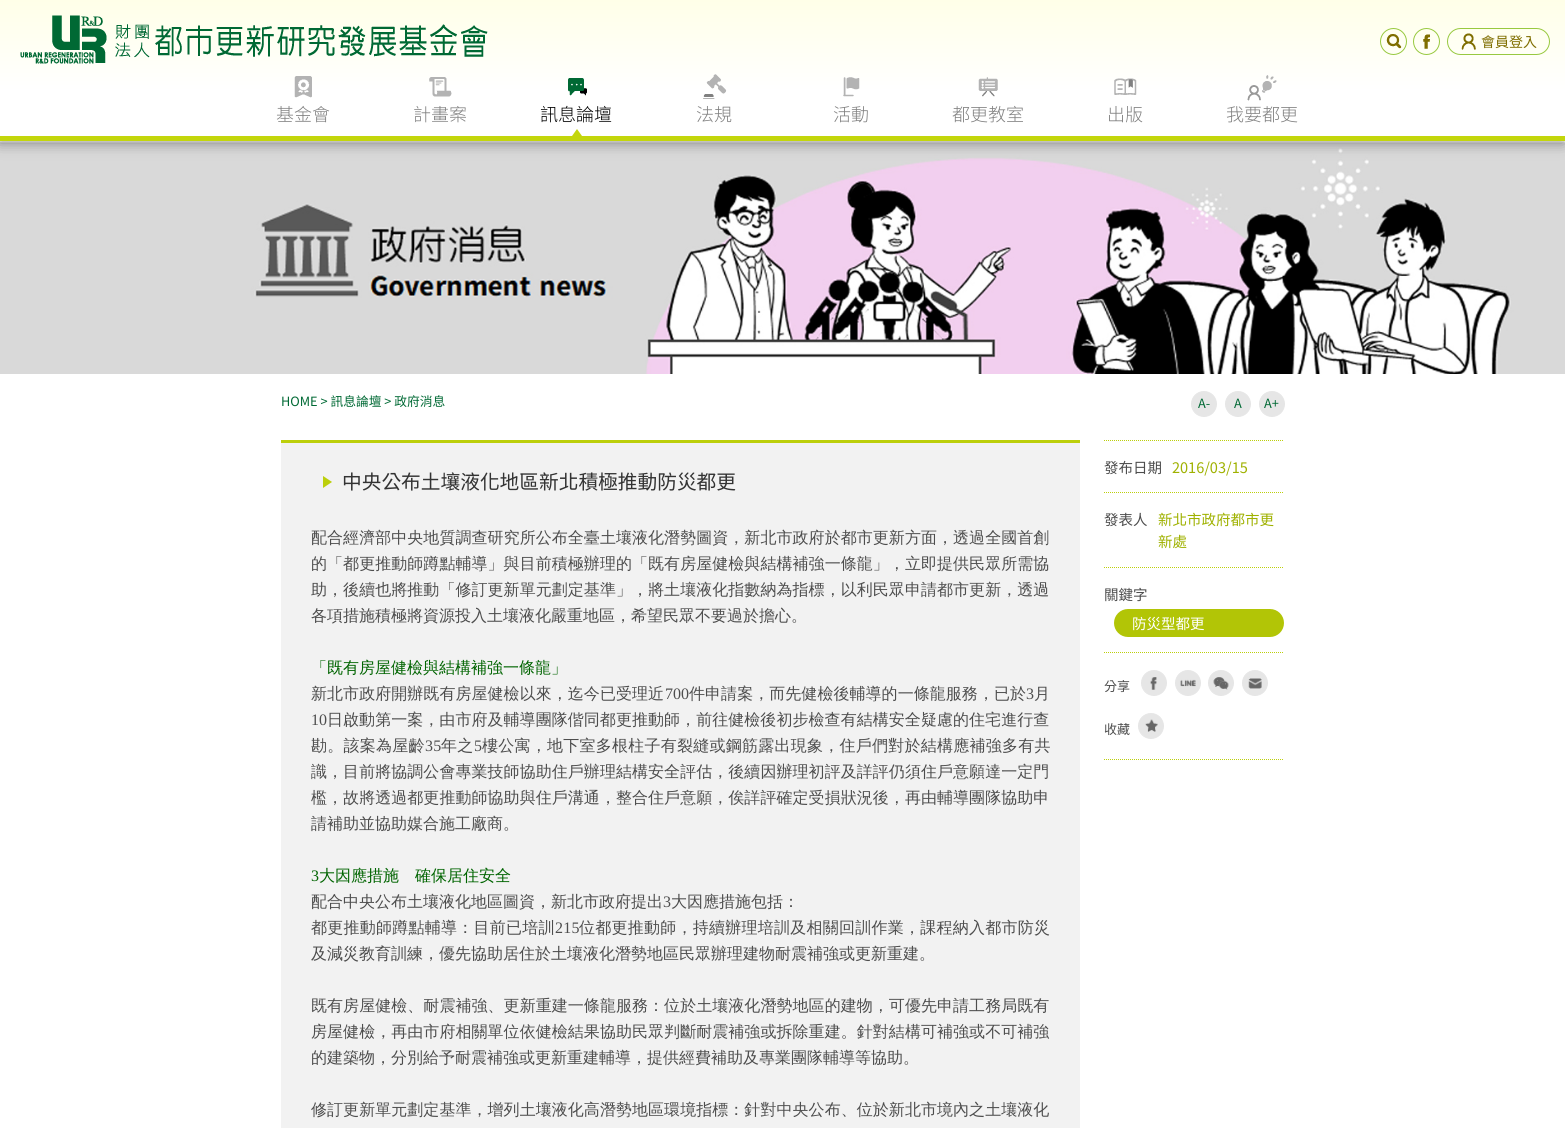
#include <cairo.h>
#include <math.h>
#include <stddef.h>

static cairo_t *ctx;

static void use_color(int r, int g, int b) {
    cairo_set_source_rgb(ctx, r / 255.0, g / 255.0, b / 255.0);
}

static void spaced_text(double x, double y, const char *s, double letter, double word) {
    cairo_move_to(ctx, x, y);
    while (*s) {
        char ch[5] = {0};
        int n = 0;
        do ch[n++] = *s++; while ((*s & 0xC0) == 0x80);
        cairo_show_text(ctx, ch);
        cairo_rel_move_to(ctx, letter + word * (*ch == ' '), 0);
    }
}

static void round_rect(double x, double y, double w, double h, double r) {
    cairo_new_sub_path(ctx);
    cairo_arc(ctx, x + w - r, y + h - r, r, 0, M_PI / 2);
    cairo_arc(ctx, x + r, y + h - r, r, M_PI / 2, M_PI);
    cairo_arc(ctx, x + r, y + r, r, M_PI, 1.5 * M_PI);
    cairo_arc(ctx, x + w - r, y + r, r, 1.5 * M_PI, 2 * M_PI);
    cairo_close_path(ctx);
}

static void shadow(double x, double y, double w, double h, double r, double blur, double alpha) {
    cairo_push_group_with_content(ctx, CAIRO_CONTENT_ALPHA);
    cairo_set_operator(ctx, CAIRO_OPERATOR_SOURCE);
    for (int i = 15; i >= -15 && fmin(w, h) + blur * i / 3 > 0; i -= 2) {
        double e = blur * i / 6;
        cairo_set_source_rgba(ctx, 0, 0, 0, alpha * erfc((i - 1) / 8.5) / 2);
        round_rect(x - e, y - e, w + 2 * e, h + 2 * e, fmax(0, fmin(r + e + blur * .6, fmin(w, h) / 2 + e)));
        cairo_fill(ctx);
    }
    cairo_pattern_t *soft = cairo_pop_group(ctx);
    cairo_mask(ctx, soft);
    cairo_pattern_destroy(soft);
}

static void picture(const char *path, double x, double y, double w, double h) {
    cairo_surface_t *image = cairo_image_surface_create_from_png(path);
    cairo_save(ctx);
    cairo_set_source_surface(ctx, image, x, y);
    cairo_rectangle(ctx, x, y, w, h);
    cairo_fill(ctx);
    cairo_restore(ctx);
    cairo_surface_destroy(image);
}

int main(void) {
    cairo_surface_t *surface = cairo_image_surface_create(CAIRO_FORMAT_RGB24, 1565, 1128);
    ctx = cairo_create(surface);
    cairo_font_options_t *options = cairo_font_options_create();
    cairo_font_options_set_hint_metrics(options, CAIRO_HINT_METRICS_OFF);
    cairo_font_options_set_hint_style(options, CAIRO_HINT_STYLE_NONE);
    cairo_set_font_options(ctx, options);
    cairo_set_miter_limit(ctx, 4);
    cairo_pattern_t *gradient;
    use_color(255, 255, 255);
    cairo_paint(ctx);
    picture("img13.png", 0, 142, 1565, 232);
    use_color(0, 0, 0);
    shadow(-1, 2, 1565, 141, 0, 7, 0.4);
    gradient = cairo_pattern_create_linear(783, 0, 783, 136);
    cairo_pattern_add_color_stop_rgba(gradient, 0, 1, 1, 0.91, 1);
    cairo_pattern_add_color_stop_rgba(gradient, 0.67, 1, 1, 1, 1);
    cairo_set_source(ctx, gradient);
    cairo_pattern_destroy(gradient);
    cairo_rectangle(ctx, 0, 0, 1565, 136);
    cairo_fill(ctx);
    use_color(195, 214, 11);
    cairo_rectangle(ctx, 0, 136, 1565, 5);
    cairo_fill(ctx);
    picture("img1.png", 20, 15, 468, 49);
    cairo_arc(ctx, 1393.5, 41.5, 13, 0, 2 * M_PI);
    use_color(152, 201, 64);
    cairo_set_line_width(ctx, 1);
    cairo_stroke(ctx);
    picture("img2.png", 1386, 34, 16, 15);
    cairo_arc(ctx, 1426.5, 41.5, 13, 0, 2 * M_PI);
    cairo_stroke(ctx);
    picture("img3.png", 1423, 34, 7, 15);
    round_rect(1447.5, 28.5, 102, 26, 13);
    cairo_stroke(ctx);
    picture("img4.png", 1461, 33, 15, 17);
    cairo_select_font_face(ctx, "Noto Sans TC", CAIRO_FONT_SLANT_NORMAL, CAIRO_FONT_WEIGHT_NORMAL);
    cairo_set_font_size(ctx, 14);
    use_color(127, 110, 0);
    cairo_move_to(ctx, 1481, 47);
    cairo_show_text(ctx, "會員登入");
    picture("img5.png", 294, 76, 18, 22);
    cairo_select_font_face(ctx, "Noto Sans TC Light", CAIRO_FONT_SLANT_NORMAL, CAIRO_FONT_WEIGHT_NORMAL);
    cairo_set_font_size(ctx, 18);
    use_color(128, 128, 128);
    cairo_move_to(ctx, 276, 121);
    cairo_show_text(ctx, "基金會");
    picture("img6.png", 429, 77, 23, 20);
    cairo_move_to(ctx, 413, 121);
    cairo_show_text(ctx, "計畫案");
    picture("img7.png", 568, 78, 19, 18);
    use_color(0, 0, 0);
    cairo_move_to(ctx, 540, 121);
    cairo_show_text(ctx, "訊息論壇");
    use_color(195, 214, 11);
    cairo_new_path(ctx);
    cairo_move_to(ctx, 582, 136);
    cairo_line_to(ctx, 572, 136);
    cairo_line_to(ctx, 577, 129);
    cairo_close_path(ctx);
    cairo_fill(ctx);
    picture("img8.png", 703, 74, 24, 25);
    use_color(128, 128, 128);
    cairo_move_to(ctx, 696, 121);
    cairo_show_text(ctx, "法規");
    picture("img9.png", 843, 77, 17, 20);
    cairo_move_to(ctx, 833, 121);
    cairo_show_text(ctx, "活動");
    picture("img10.png", 978, 77, 20, 20);
    cairo_move_to(ctx, 952, 121);
    cairo_show_text(ctx, "都更教室");
    picture("img11.png", 1114, 78, 23, 17);
    cairo_move_to(ctx, 1107, 121);
    cairo_show_text(ctx, "出版");
    picture("img12.png", 1247, 75, 30, 26);
    cairo_move_to(ctx, 1226, 121);
    cairo_show_text(ctx, "我要都更");
    cairo_select_font_face(ctx, "Noto Sans TC", CAIRO_FONT_SLANT_NORMAL, CAIRO_FONT_WEIGHT_NORMAL);
    cairo_set_font_size(ctx, 12.75);
    use_color(0, 105, 52);
    cairo_move_to(ctx, 281, 406);
    cairo_show_text(ctx, "HOME > 訊息論壇 > 政府消息");
    use_color(230, 230, 230);
    cairo_new_path(ctx);
    cairo_arc(ctx, 1204, 404, 12.5, 0, 2 * M_PI);
    cairo_fill_preserve(ctx);
    cairo_stroke(ctx);
    use_color(0, 105, 52);
    cairo_move_to(ctx, 1198, 408);
    cairo_show_text(ctx, "A-");
    use_color(230, 230, 230);
    cairo_new_path(ctx);
    cairo_arc(ctx, 1238, 404, 12.5, 0, 2 * M_PI);
    cairo_fill_preserve(ctx);
    cairo_stroke(ctx);
    use_color(0, 105, 52);
    cairo_move_to(ctx, 1234, 408);
    cairo_show_text(ctx, "A");
    use_color(230, 230, 230);
    cairo_new_path(ctx);
    cairo_arc(ctx, 1272, 404, 12.5, 0, 2 * M_PI);
    cairo_fill_preserve(ctx);
    cairo_stroke(ctx);
    use_color(0, 105, 52);
    cairo_move_to(ctx, 1264, 408);
    cairo_show_text(ctx, "A+");
    use_color(242, 242, 242);
    cairo_rectangle(ctx, 281, 443, 799, 685);
    cairo_fill(ctx);
    use_color(188, 207, 11);
    cairo_rectangle(ctx, 281, 440, 799, 3);
    cairo_fill(ctx);
    cairo_new_path(ctx);
    cairo_move_to(ctx, 323, 488);
    cairo_line_to(ctx, 323, 476);
    cairo_line_to(ctx, 332, 482);
    cairo_close_path(ctx);
    cairo_fill(ctx);
    cairo_set_font_size(ctx, 19.7);
    use_color(51, 51, 51);
    cairo_move_to(ctx, 342, 489);
    cairo_show_text(ctx, "中央公布土壤液化地區新北積極推動防災都更");
    cairo_select_font_face(ctx, "WenQuanYi Zen Hei Medium", CAIRO_FONT_SLANT_NORMAL, CAIRO_FONT_WEIGHT_NORMAL);
    cairo_set_font_size(ctx, 16);
    use_color(77, 77, 77);
    spaced_text(311, 543, "配合經濟部中央地質調查研究所公布全臺土壤液化潛勢圖資，新北市政府於都市更新方面，透過全國首創", 0.05, 0);
    spaced_text(311, 569, "的「都更推動師蹲點輔導」與目前積極辦理的「既有房屋健檢與結構補強一條龍」，立即提供民眾所需協", 0.05, 0);
    spaced_text(311, 595, "助，後續也將推動「修訂更新單元劃定基準」，將土壤液化指數納為指標，以利民眾申請都市更新，透過", 0.05, 0);
    cairo_move_to(ctx, 311, 621);
    cairo_show_text(ctx, "各項措施積極將資源投入土壤液化嚴重地區，希望民眾不要過於擔心。");
    use_color(0, 100, 0);
    cairo_move_to(ctx, 311, 673);
    cairo_show_text(ctx, "「既有房屋健檢與結構補強一條龍」");
    use_color(77, 77, 77);
    spaced_text(311, 699, "新北市政府開辦既有房屋健檢以來，迄今已受理近", 0.05, 0);
    cairo_select_font_face(ctx, "Liberation Serif", CAIRO_FONT_SLANT_NORMAL, CAIRO_FONT_WEIGHT_NORMAL);
    spaced_text(665, 699, "700", 0.05, 0);
    cairo_select_font_face(ctx, "WenQuanYi Zen Hei Medium", CAIRO_FONT_SLANT_NORMAL, CAIRO_FONT_WEIGHT_NORMAL);
    spaced_text(689, 699, "件申請案，而先健檢後輔導的一條龍服務，已於", 0.05, 0);
    cairo_select_font_face(ctx, "Liberation Serif", CAIRO_FONT_SLANT_NORMAL, CAIRO_FONT_WEIGHT_NORMAL);
    spaced_text(1026, 699, "3", 0.05, 0);
    cairo_select_font_face(ctx, "WenQuanYi Zen Hei Medium", CAIRO_FONT_SLANT_NORMAL, CAIRO_FONT_WEIGHT_NORMAL);
    spaced_text(1034, 699, "月", 0.05, 0);
    cairo_select_font_face(ctx, "Liberation Serif", CAIRO_FONT_SLANT_NORMAL, CAIRO_FONT_WEIGHT_NORMAL);
    spaced_text(311, 725, "10", 0.05, 0);
    cairo_select_font_face(ctx, "WenQuanYi Zen Hei Medium", CAIRO_FONT_SLANT_NORMAL, CAIRO_FONT_WEIGHT_NORMAL);
    spaced_text(327, 725, "日啟動第一案，由市府及輔導團隊偕同都更推動師，前往健檢後初步檢查有結構安全疑慮的住宅進行查", 0.05, 0);
    spaced_text(311, 751, "勘。該案為屋齡", 0.25, 0);
    cairo_select_font_face(ctx, "Liberation Serif", CAIRO_FONT_SLANT_NORMAL, CAIRO_FONT_WEIGHT_NORMAL);
    spaced_text(425, 751, "35", 0.25, 0);
    cairo_select_font_face(ctx, "WenQuanYi Zen Hei Medium", CAIRO_FONT_SLANT_NORMAL, CAIRO_FONT_WEIGHT_NORMAL);
    spaced_text(441, 751, "年之", 0.25, 0);
    cairo_select_font_face(ctx, "Liberation Serif", CAIRO_FONT_SLANT_NORMAL, CAIRO_FONT_WEIGHT_NORMAL);
    spaced_text(474, 751, "5", 0.25, 0);
    cairo_select_font_face(ctx, "WenQuanYi Zen Hei Medium", CAIRO_FONT_SLANT_NORMAL, CAIRO_FONT_WEIGHT_NORMAL);
    spaced_text(482, 751, "樓公寓，地下室多根柱子有裂縫或鋼筋露出現象，住戶們對於結構應補強多有共", 0.25, 0);
    spaced_text(311, 777, "識，目前將協調公會專業技師協助住戶辦理結構安全評估，後續因辦理初評及詳評仍須住戶意願達一定門", 0.05, 0);
    spaced_text(311, 803, "檻，故將透過都更推動師協助與住戶溝通，整合住戶意願，俟詳評確定受損狀況後，再由輔導團隊協助申", 0.05, 0);
    cairo_move_to(ctx, 311, 829);
    cairo_show_text(ctx, "請補助並協助媒合施工廠商。");
    cairo_select_font_face(ctx, "Liberation Serif", CAIRO_FONT_SLANT_NORMAL, CAIRO_FONT_WEIGHT_NORMAL);
    use_color(0, 100, 0);
    cairo_move_to(ctx, 311, 881);
    cairo_show_text(ctx, "3");
    cairo_select_font_face(ctx, "WenQuanYi Zen Hei Medium", CAIRO_FONT_SLANT_NORMAL, CAIRO_FONT_WEIGHT_NORMAL);
    cairo_move_to(ctx, 319, 881);
    cairo_show_text(ctx, "大因應措施　確保居住安全");
    use_color(77, 77, 77);
    cairo_move_to(ctx, 311, 907);
    cairo_show_text(ctx, "配合中央公布土壤液化地區圖資，新北市政府提出");
    cairo_select_font_face(ctx, "Liberation Serif", CAIRO_FONT_SLANT_NORMAL, CAIRO_FONT_WEIGHT_NORMAL);
    cairo_move_to(ctx, 663, 907);
    cairo_show_text(ctx, "3");
    cairo_select_font_face(ctx, "WenQuanYi Zen Hei Medium", CAIRO_FONT_SLANT_NORMAL, CAIRO_FONT_WEIGHT_NORMAL);
    cairo_move_to(ctx, 671, 907);
    cairo_show_text(ctx, "大因應措施包括：");
    spaced_text(311, 933, "都更推動師蹲點輔導：目前已培訓", 0.25, 0);
    cairo_select_font_face(ctx, "Liberation Serif", CAIRO_FONT_SLANT_NORMAL, CAIRO_FONT_WEIGHT_NORMAL);
    spaced_text(555, 933, "215", 0.25, 0);
    cairo_select_font_face(ctx, "WenQuanYi Zen Hei Medium", CAIRO_FONT_SLANT_NORMAL, CAIRO_FONT_WEIGHT_NORMAL);
    spaced_text(579, 933, "位都更推動師，持續辦理培訓及相關回訓作業，課程納入都市防災", 0.25, 0);
    cairo_move_to(ctx, 311, 959);
    cairo_show_text(ctx, "及減災教育訓練，優先協助居住於土壤液化潛勢地區民眾辦理建物耐震補強或更新重建。");
    spaced_text(311, 1011, "既有房屋健檢、耐震補強、更新重建一條龍服務：位於土壤液化潛勢地區的建物，可優先申請工務局既有", 0.05, 0);
    spaced_text(311, 1037, "房屋健檢，再由市府相關單位依健檢結果協助民眾判斷耐震補強或拆除重建。針對結構可補強或不可補強", 0.05, 0);
    cairo_move_to(ctx, 311, 1063);
    cairo_show_text(ctx, "的建築物，分別給予耐震補強或更新重建輔導，提供經費補助及專業團隊輔導等協助。");
    spaced_text(311, 1115, "修訂更新單元劃定基準，增列土壤液化高潛勢地區環境指標：針對中央公布、位於新北市境內之土壤液化", 0.05, 0);
    cairo_new_path(ctx);
    cairo_move_to(ctx, 1104, 440.5);
    cairo_line_to(ctx, 1284, 440.5);
    use_color(188, 207, 11);
    cairo_set_dash(ctx, (double[]){1, 1}, 2, 0);
    cairo_stroke(ctx);
    cairo_select_font_face(ctx, "Noto Sans TC", CAIRO_FONT_SLANT_NORMAL, CAIRO_FONT_WEIGHT_NORMAL);
    cairo_set_font_size(ctx, 14.5);
    use_color(77, 77, 77);
    cairo_move_to(ctx, 1104, 473);
    cairo_show_text(ctx, "發布日期");
    use_color(159, 177, 0);
    cairo_move_to(ctx, 1172, 473);
    cairo_show_text(ctx, "2016/03/15");
    cairo_new_path(ctx);
    cairo_move_to(ctx, 1104, 492.5);
    cairo_line_to(ctx, 1284, 492.5);
    use_color(188, 207, 11);
    cairo_stroke(ctx);
    use_color(77, 77, 77);
    cairo_move_to(ctx, 1104, 525);
    cairo_show_text(ctx, "發表人");
    use_color(159, 177, 0);
    cairo_move_to(ctx, 1158, 525);
    cairo_show_text(ctx, "新北市政府都市更");
    cairo_move_to(ctx, 1158, 547);
    cairo_show_text(ctx, "新處");
    cairo_new_path(ctx);
    cairo_move_to(ctx, 1104, 567.5);
    cairo_line_to(ctx, 1284, 567.5);
    use_color(188, 207, 11);
    cairo_stroke(ctx);
    use_color(77, 77, 77);
    cairo_move_to(ctx, 1104, 600);
    cairo_show_text(ctx, "關鍵字");
    use_color(178, 197, 6);
    round_rect(1114, 609, 170, 28, 14);
    cairo_fill(ctx);
    use_color(255, 255, 255);
    cairo_move_to(ctx, 1132, 629);
    cairo_show_text(ctx, "防災型都更");
    cairo_new_path(ctx);
    cairo_move_to(ctx, 1104, 652.5);
    cairo_line_to(ctx, 1284, 652.5);
    use_color(188, 207, 11);
    cairo_stroke(ctx);
    cairo_new_path(ctx);
    cairo_move_to(ctx, 1104, 759.5);
    cairo_line_to(ctx, 1284, 759.5);
    cairo_stroke(ctx);
    cairo_set_font_size(ctx, 13);
    use_color(77, 77, 77);
    cairo_move_to(ctx, 1104, 691);
    cairo_show_text(ctx, "分享");
    use_color(230, 230, 230);
    cairo_new_path(ctx);
    cairo_arc(ctx, 1154, 683, 12.5, 0, 2 * M_PI);
    cairo_fill_preserve(ctx);
    cairo_set_dash(ctx, NULL, 0, 0);
    cairo_stroke(ctx);
    picture("img14.png", 1150, 677, 7, 13);
    cairo_arc(ctx, 1188, 683, 12.5, 0, 2 * M_PI);
    cairo_fill_preserve(ctx);
    cairo_stroke(ctx);
    picture("img15.png", 1180, 679, 16, 8);
    cairo_arc(ctx, 1221, 683, 12.5, 0, 2 * M_PI);
    cairo_fill_preserve(ctx);
    cairo_stroke(ctx);
    picture("img16.png", 1213, 677, 16, 13);
    cairo_arc(ctx, 1255, 683, 12.5, 0, 2 * M_PI);
    cairo_fill_preserve(ctx);
    cairo_stroke(ctx);
    picture("img17.png", 1248, 678, 14, 11);
    use_color(77, 77, 77);
    cairo_move_to(ctx, 1104, 734);
    cairo_show_text(ctx, "收藏");
    use_color(230, 230, 230);
    cairo_new_path(ctx);
    cairo_arc(ctx, 1151, 726, 12.5, 0, 2 * M_PI);
    cairo_fill_preserve(ctx);
    cairo_stroke(ctx);
    picture("img18.png", 1145, 719, 13, 13);
    cairo_surface_write_to_png(surface, "result.png");
    cairo_font_options_destroy(options);
    cairo_destroy(ctx);
    cairo_surface_destroy(surface);
    return 0;
}
